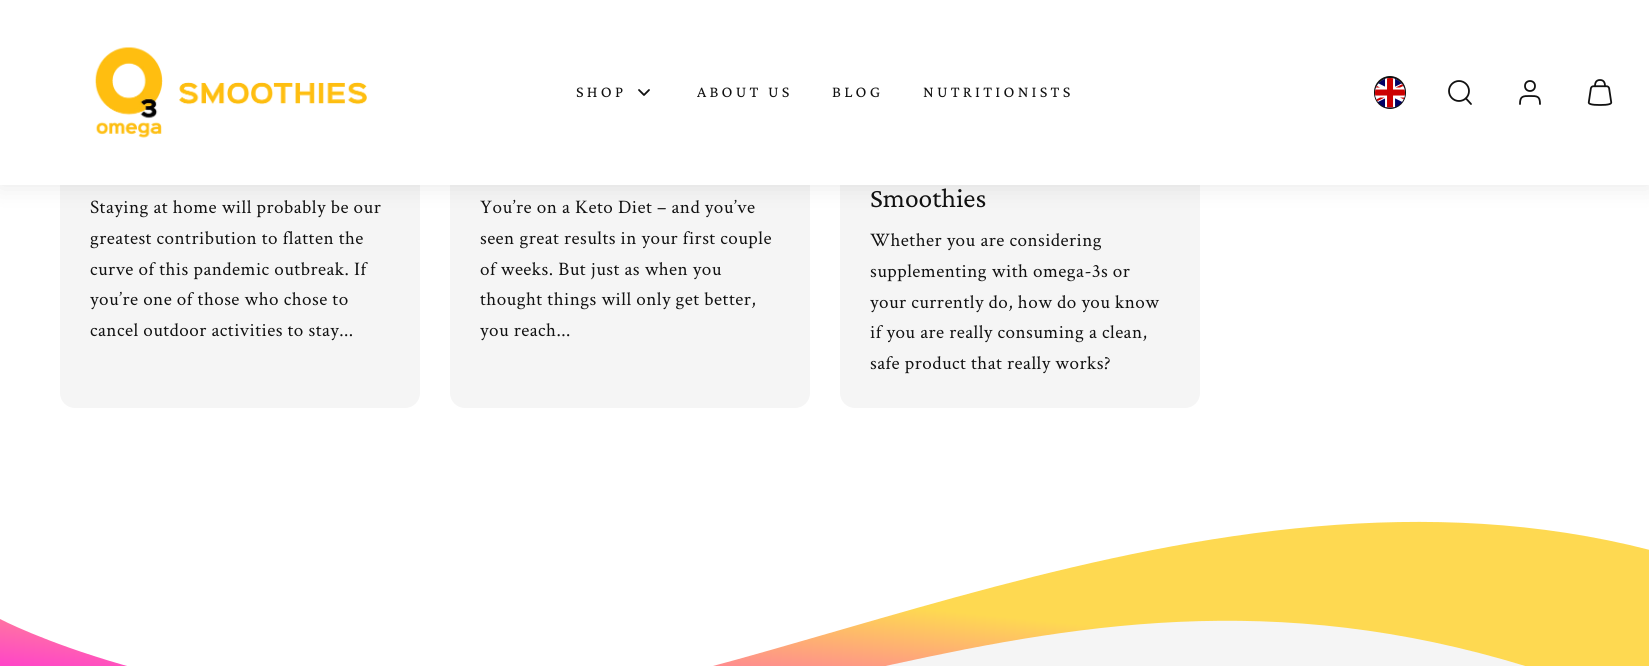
#include <cairo.h>
#include <math.h>
#include <stddef.h>

static cairo_t *ctx;

static void use_color(int r, int g, int b) {
    cairo_set_source_rgb(ctx, r / 255.0, g / 255.0, b / 255.0);
}

static void spaced_text(double x, double y, const char *s, double letter, double word) {
    cairo_move_to(ctx, x, y);
    while (*s) {
        char ch[5] = {0};
        int n = 0;
        do ch[n++] = *s++; while ((*s & 0xC0) == 0x80);
        cairo_show_text(ctx, ch);
        cairo_rel_move_to(ctx, letter + word * (*ch == ' '), 0);
    }
}

static void round_rect(double x, double y, double w, double h, double r) {
    cairo_new_sub_path(ctx);
    cairo_arc(ctx, x + w - r, y + h - r, r, 0, M_PI / 2);
    cairo_arc(ctx, x + r, y + h - r, r, M_PI / 2, M_PI);
    cairo_arc(ctx, x + r, y + r, r, M_PI, 1.5 * M_PI);
    cairo_arc(ctx, x + w - r, y + r, r, 1.5 * M_PI, 2 * M_PI);
    cairo_close_path(ctx);
}

static void shadow(double x, double y, double w, double h, double r, double blur, double alpha) {
    cairo_push_group_with_content(ctx, CAIRO_CONTENT_ALPHA);
    cairo_set_operator(ctx, CAIRO_OPERATOR_SOURCE);
    for (int i = 15; i >= -15 && fmin(w, h) + blur * i / 3 > 0; i -= 2) {
        double e = blur * i / 6;
        cairo_set_source_rgba(ctx, 0, 0, 0, alpha * erfc((i - 1) / 8.5) / 2);
        round_rect(x - e, y - e, w + 2 * e, h + 2 * e, fmax(0, fmin(r + e + blur * .6, fmin(w, h) / 2 + e)));
        cairo_fill(ctx);
    }
    cairo_pattern_t *soft = cairo_pop_group(ctx);
    cairo_mask(ctx, soft);
    cairo_pattern_destroy(soft);
}

static void picture(const char *path, double x, double y, double w, double h) {
    cairo_surface_t *image = cairo_image_surface_create_from_png(path);
    cairo_save(ctx);
    cairo_set_source_surface(ctx, image, x, y);
    cairo_rectangle(ctx, x, y, w, h);
    cairo_fill(ctx);
    cairo_restore(ctx);
    cairo_surface_destroy(image);
}

int main(void) {
    cairo_surface_t *surface = cairo_image_surface_create(CAIRO_FORMAT_RGB24, 1649, 666);
    ctx = cairo_create(surface);
    cairo_font_options_t *options = cairo_font_options_create();
    cairo_font_options_set_hint_metrics(options, CAIRO_HINT_METRICS_OFF);
    cairo_font_options_set_hint_style(options, CAIRO_HINT_STYLE_NONE);
    cairo_set_font_options(ctx, options);
    cairo_set_miter_limit(ctx, 4);
    cairo_pattern_t *gradient;
    use_color(255, 255, 255);
    cairo_paint(ctx);
    use_color(245, 245, 245);
    round_rect(60, -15, 360, 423, 15);
    cairo_fill(ctx);
    round_rect(450, -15, 360, 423, 15);
    cairo_fill(ctx);
    round_rect(840, -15, 360, 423, 15);
    cairo_fill(ctx);
    use_color(0, 0, 0);
    shadow(0, 0, 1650, 185, 0, 12.5, 0.1);
    use_color(255, 255, 255);
    cairo_rectangle(ctx, 0, 0, 1649, 185);
    cairo_fill(ctx);
    picture("img1.png", 95, 47, 272, 91);
    cairo_select_font_face(ctx, "Crimson Pro", CAIRO_FONT_SLANT_NORMAL, CAIRO_FONT_WEIGHT_NORMAL);
    cairo_set_font_size(ctx, 16.25);
    use_color(17, 17, 17);
    spaced_text(576, 97, "SHOP", 3.25, 0);
    cairo_new_path(ctx);
    cairo_move_to(ctx, 639, 90);
    cairo_line_to(ctx, 644, 95);
    cairo_line_to(ctx, 649, 90);
    cairo_set_line_width(ctx, 1.8);
    cairo_set_line_cap(ctx, CAIRO_LINE_CAP_ROUND);
    cairo_set_line_join(ctx, CAIRO_LINE_JOIN_ROUND);
    cairo_stroke(ctx);
    spaced_text(697, 97, "ABOUT US", 3.25, 0);
    spaced_text(832, 97, "BLOG", 3.25, 0);
    spaced_text(923, 97, "NUTRITIONISTS", 3.25, 0);
    round_rect(1375, 77, 30, 31, 15);
    cairo_set_line_width(ctx, 2);
    cairo_set_line_cap(ctx, CAIRO_LINE_CAP_BUTT);
    cairo_set_line_join(ctx, CAIRO_LINE_JOIN_MITER);
    cairo_stroke(ctx);
    picture("img2.png", 1375, 78, 30, 30);
    cairo_arc(ctx, 1459, 91, 10, 0, 2 * M_PI);
    cairo_set_line_width(ctx, 1.8);
    cairo_stroke(ctx);
    cairo_new_path(ctx);
    cairo_move_to(ctx, 1471, 104);
    cairo_line_to(ctx, 1466, 98.5);
    cairo_set_line_cap(ctx, CAIRO_LINE_CAP_ROUND);
    cairo_set_line_join(ctx, CAIRO_LINE_JOIN_ROUND);
    cairo_stroke(ctx);
    cairo_new_path(ctx);
    cairo_move_to(ctx, 1540, 104);
    cairo_curve_to(ctx, 1540, 96, 1537, 96, 1530, 96);
    cairo_curve_to(ctx, 1523, 96, 1520, 96, 1520, 104);
    cairo_stroke(ctx);
    cairo_arc(ctx, 1530, 86, 5, 0, 2 * M_PI);
    cairo_set_line_cap(ctx, CAIRO_LINE_CAP_BUTT);
    cairo_set_line_join(ctx, CAIRO_LINE_JOIN_MITER);
    cairo_stroke(ctx);
    picture("img3.png", 1587, 79, 26, 27);
    cairo_select_font_face(ctx, "Crimson Text", CAIRO_FONT_SLANT_NORMAL, CAIRO_FONT_WEIGHT_NORMAL);
    cairo_set_font_size(ctx, 19.1);
    spaced_text(90, 213, "Staying at home will probably be our", 0.45, 0);
    spaced_text(90, 244, "greatest contribution to flatten the", 0.45, 0);
    spaced_text(90, 275, "curve of this pandemic outbreak. If", 0.45, 0);
    spaced_text(90, 305, "you’re one of those who chose to", 0.45, 0);
    spaced_text(90, 336, "cancel outdoor activities to stay...", 0.45, 0);
    spaced_text(480, 213, "You’re on a Keto Diet – and you’ve", 0.45, 0);
    spaced_text(480, 244, "seen great results in your first couple", 0.45, 0);
    spaced_text(480, 275, "of weeks. But just as when you", 0.45, 0);
    spaced_text(480, 305, "thought things will only get better,", 0.45, 0);
    spaced_text(480, 336, "you reach...", 0.45, 0);
    cairo_select_font_face(ctx, "Crimson Pro", CAIRO_FONT_SLANT_NORMAL, CAIRO_FONT_WEIGHT_NORMAL);
    cairo_set_font_size(ctx, 27.5);
    cairo_move_to(ctx, 870, 207);
    cairo_show_text(ctx, "Smoothies");
    cairo_select_font_face(ctx, "Crimson Text", CAIRO_FONT_SLANT_NORMAL, CAIRO_FONT_WEIGHT_NORMAL);
    cairo_set_font_size(ctx, 19.1);
    spaced_text(870, 246, "Whether you are considering", 0.45, 0);
    spaced_text(870, 277, "supplementing with omega-3s or", 0.45, 0);
    spaced_text(870, 308, "your currently do, how do you know", 0.45, 0);
    spaced_text(870, 338, "if you are really consuming a clean,", 0.45, 0);
    spaced_text(870, 369, "safe product that really works?", 0.45, 0);
    gradient = cairo_pattern_create_linear(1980, 610, 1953, 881);
    cairo_pattern_add_color_stop_rgba(gradient, 0.38, 0.996, 0.851, 0.318, 1);
    cairo_pattern_add_color_stop_rgba(gradient, 0.92, 1, 0.275, 0.78, 1);
    cairo_set_source(ctx, gradient);
    cairo_pattern_destroy(gradient);
    cairo_new_path(ctx);
    cairo_move_to(ctx, 0, 619);
    cairo_curve_to(ctx, 0, 619, 172, 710, 458, 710);
    cairo_curve_to(ctx, 745, 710, 1203, 435, 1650, 550);
    cairo_line_to(ctx, 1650, 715);
    cairo_curve_to(ctx, 1108, 481, 803, 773, 344, 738);
    cairo_curve_to(ctx, 46, 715, 0, 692, 0, 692);
    cairo_close_path(ctx);
    cairo_fill(ctx);
    use_color(245, 245, 245);
    cairo_new_path(ctx);
    cairo_move_to(ctx, 344, 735);
    cairo_curve_to(ctx, 46, 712, 0, 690, 0, 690);
    cairo_line_to(ctx, 0, 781);
    cairo_line_to(ctx, 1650, 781);
    cairo_line_to(ctx, 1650, 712);
    cairo_curve_to(ctx, 1108, 479, 802, 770, 344, 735);
    cairo_close_path(ctx);
    cairo_fill(ctx);
    cairo_surface_write_to_png(surface, "result.png");
    cairo_font_options_destroy(options);
    cairo_destroy(ctx);
    cairo_surface_destroy(surface);
    return 0;
}
